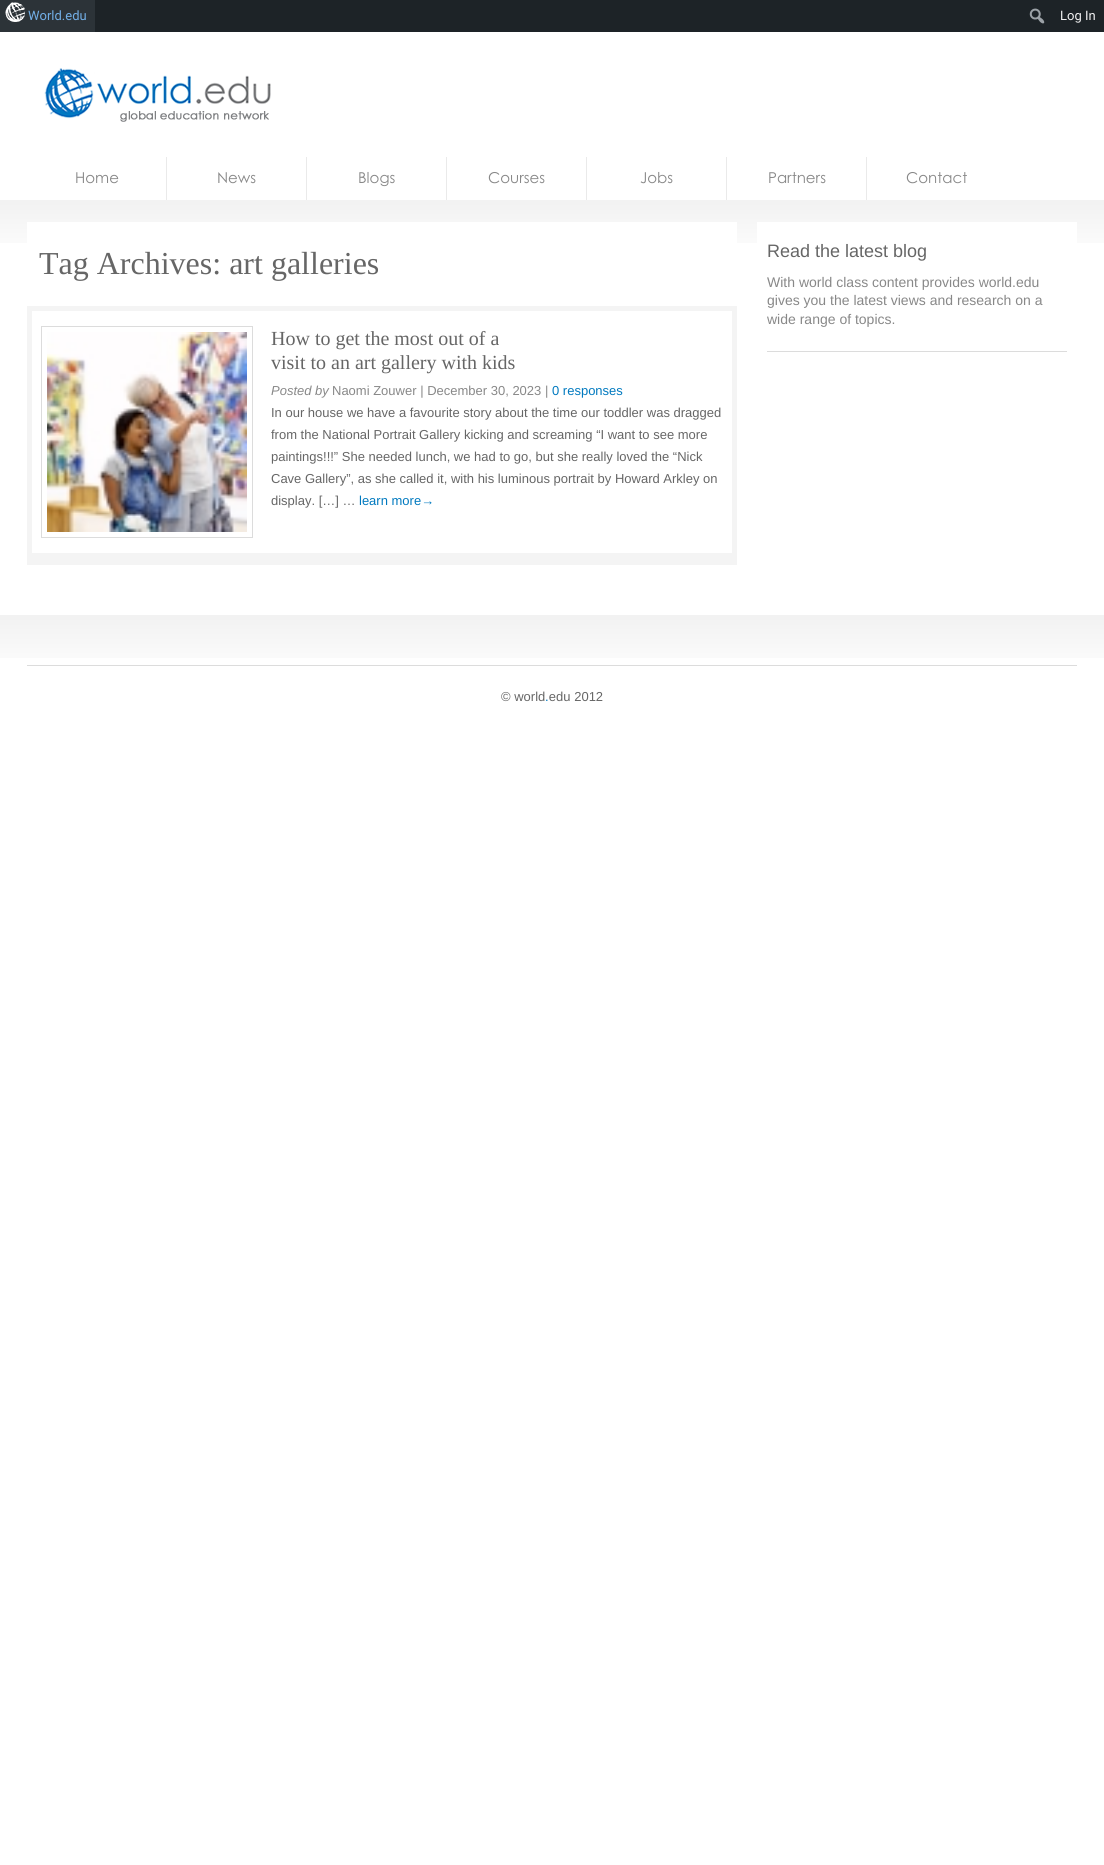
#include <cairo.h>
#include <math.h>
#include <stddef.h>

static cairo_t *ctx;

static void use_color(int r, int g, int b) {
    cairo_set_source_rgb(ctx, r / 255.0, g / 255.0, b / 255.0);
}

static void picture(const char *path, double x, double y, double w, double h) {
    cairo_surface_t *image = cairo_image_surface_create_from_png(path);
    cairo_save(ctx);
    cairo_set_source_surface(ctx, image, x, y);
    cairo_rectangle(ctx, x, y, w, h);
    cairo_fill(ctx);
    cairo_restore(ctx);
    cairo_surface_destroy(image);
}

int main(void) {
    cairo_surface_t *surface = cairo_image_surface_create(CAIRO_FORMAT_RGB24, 1104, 1865);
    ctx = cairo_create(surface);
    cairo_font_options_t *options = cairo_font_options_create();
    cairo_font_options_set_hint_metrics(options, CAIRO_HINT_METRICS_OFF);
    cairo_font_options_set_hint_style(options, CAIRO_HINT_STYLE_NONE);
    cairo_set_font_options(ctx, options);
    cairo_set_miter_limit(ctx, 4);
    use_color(255, 255, 255);
    cairo_paint(ctx);
    use_color(29, 35, 39);
    cairo_rectangle(ctx, 95, 0, 1009, 32);
    cairo_fill(ctx);
    picture("img1.png", 1029, 8, 16, 16);
    use_color(44, 51, 56);
    cairo_rectangle(ctx, 0, 0, 95, 32);
    cairo_fill(ctx);
    picture("img2.png", 5, 2, 20, 20);
    cairo_select_font_face(ctx, "Roboto", CAIRO_FONT_SLANT_NORMAL, CAIRO_FONT_WEIGHT_NORMAL);
    cairo_set_font_size(ctx, 13);
    use_color(114, 174, 230);
    cairo_move_to(ctx, 28, 20);
    cairo_show_text(ctx, "World.edu");
    use_color(240, 240, 241);
    cairo_move_to(ctx, 1060, 20);
    cairo_show_text(ctx, "Log In");
    picture("img3.png", 44, 68, 227, 54);
    use_color(234, 234, 234);
    cairo_rectangle(ctx, 166, 157, 1, 43);
    cairo_fill(ctx);
    cairo_select_font_face(ctx, "Century Gothic", CAIRO_FONT_SLANT_NORMAL, CAIRO_FONT_WEIGHT_NORMAL);
    cairo_set_font_size(ctx, 15);
    use_color(136, 136, 136);
    cairo_move_to(ctx, 75, 183);
    cairo_show_text(ctx, "Home");
    use_color(234, 234, 234);
    cairo_rectangle(ctx, 306, 157, 1, 43);
    cairo_fill(ctx);
    use_color(136, 136, 136);
    cairo_move_to(ctx, 217, 183);
    cairo_show_text(ctx, "News");
    use_color(234, 234, 234);
    cairo_rectangle(ctx, 446, 157, 1, 43);
    cairo_fill(ctx);
    use_color(136, 136, 136);
    cairo_move_to(ctx, 358, 183);
    cairo_show_text(ctx, "Blogs");
    use_color(234, 234, 234);
    cairo_rectangle(ctx, 586, 157, 1, 43);
    cairo_fill(ctx);
    use_color(136, 136, 136);
    cairo_move_to(ctx, 488, 183);
    cairo_show_text(ctx, "Courses");
    use_color(234, 234, 234);
    cairo_rectangle(ctx, 726, 157, 1, 43);
    cairo_fill(ctx);
    use_color(136, 136, 136);
    cairo_move_to(ctx, 640, 183);
    cairo_show_text(ctx, "Jobs");
    use_color(234, 234, 234);
    cairo_rectangle(ctx, 866, 157, 1, 43);
    cairo_fill(ctx);
    use_color(136, 136, 136);
    cairo_move_to(ctx, 768, 183);
    cairo_show_text(ctx, "Partners");
    cairo_move_to(ctx, 906, 183);
    cairo_show_text(ctx, "Contact");
    picture("img4.png", 0, 200, 1104, 43);
    use_color(255, 255, 255);
    cairo_rectangle(ctx, 27, 222, 710, 21);
    cairo_fill(ctx);
    cairo_select_font_face(ctx, "Liberation Serif", CAIRO_FONT_SLANT_NORMAL, CAIRO_FONT_WEIGHT_NORMAL);
    cairo_set_font_size(ctx, 32);
    use_color(102, 102, 102);
    cairo_move_to(ctx, 39, 274);
    cairo_show_text(ctx, "Tag Archives: art galleries");
    use_color(244, 244, 244);
    cairo_rectangle(ctx, 27, 306, 710, 259);
    cairo_fill(ctx);
    use_color(255, 255, 255);
    cairo_rectangle(ctx, 32, 311, 700, 242);
    cairo_fill(ctx);
    cairo_rectangle(ctx, 41.5, 326.5, 211, 211);
    use_color(220, 220, 220);
    cairo_set_line_width(ctx, 1);
    cairo_stroke(ctx);
    picture("img5.png", 47, 332, 200, 200);
    cairo_set_font_size(ctx, 20);
    use_color(102, 102, 102);
    cairo_move_to(ctx, 271, 345);
    cairo_show_text(ctx, "How to get the most out of a");
    cairo_move_to(ctx, 271, 369);
    cairo_show_text(ctx, "visit to an art gallery with kids");
    cairo_select_font_face(ctx, "Liberation Sans", CAIRO_FONT_SLANT_ITALIC, CAIRO_FONT_WEIGHT_NORMAL);
    cairo_set_font_size(ctx, 13);
    use_color(136, 136, 136);
    cairo_move_to(ctx, 271, 395);
    cairo_show_text(ctx, "Posted by");
    cairo_select_font_face(ctx, "Liberation Sans", CAIRO_FONT_SLANT_NORMAL, CAIRO_FONT_WEIGHT_NORMAL);
    cairo_move_to(ctx, 332, 395);
    cairo_show_text(ctx, "Naomi Zouwer | December 30, 2023 |");
    use_color(0, 121, 191);
    cairo_move_to(ctx, 552, 395);
    cairo_show_text(ctx, "0 responses");
    use_color(102, 102, 102);
    cairo_move_to(ctx, 271, 417);
    cairo_show_text(ctx, "In our house we have a favourite story about the time our toddler was dragged");
    cairo_move_to(ctx, 271, 439);
    cairo_show_text(ctx, "from the National Portrait Gallery kicking and screaming “I want to see more");
    cairo_move_to(ctx, 271, 461);
    cairo_show_text(ctx, "paintings!!!” She needed lunch, we had to go, but she really loved the “Nick");
    cairo_move_to(ctx, 271, 483);
    cairo_show_text(ctx, "Cave Gallery”, as she called it, with his luminous portrait by Howard Arkley on");
    cairo_move_to(ctx, 271, 505);
    cairo_show_text(ctx, "display. […] …");
    use_color(0, 121, 191);
    cairo_move_to(ctx, 359, 505);
    cairo_show_text(ctx, "learn more→");
    use_color(255, 255, 255);
    cairo_rectangle(ctx, 757, 222, 320, 21);
    cairo_fill(ctx);
    use_color(220, 220, 220);
    cairo_rectangle(ctx, 767, 351, 300, 1);
    cairo_fill(ctx);
    cairo_set_font_size(ctx, 18);
    use_color(102, 102, 102);
    cairo_move_to(ctx, 767, 257);
    cairo_show_text(ctx, "Read the latest blog");
    cairo_set_font_size(ctx, 14);
    use_color(136, 136, 136);
    cairo_move_to(ctx, 767, 287);
    cairo_show_text(ctx, "With world class content provides world.edu");
    cairo_move_to(ctx, 767, 305);
    cairo_show_text(ctx, "gives you the latest views and research on a");
    cairo_move_to(ctx, 767, 324);
    cairo_show_text(ctx, "wide range of topics.");
    picture("img4.png", 0, 615, 1104, 43);
    use_color(220, 220, 220);
    cairo_rectangle(ctx, 27, 665, 1050, 1);
    cairo_fill(ctx);
    cairo_set_font_size(ctx, 13);
    use_color(102, 102, 102);
    cairo_move_to(ctx, 501, 701);
    cairo_show_text(ctx, "© world edu 2012");
    use_color(0, 121, 191);
    cairo_move_to(ctx, 545, 701);
    cairo_show_text(ctx, ".");
    cairo_surface_write_to_png(surface, "result.png");
    cairo_font_options_destroy(options);
    cairo_destroy(ctx);
    cairo_surface_destroy(surface);
    return 0;
}
